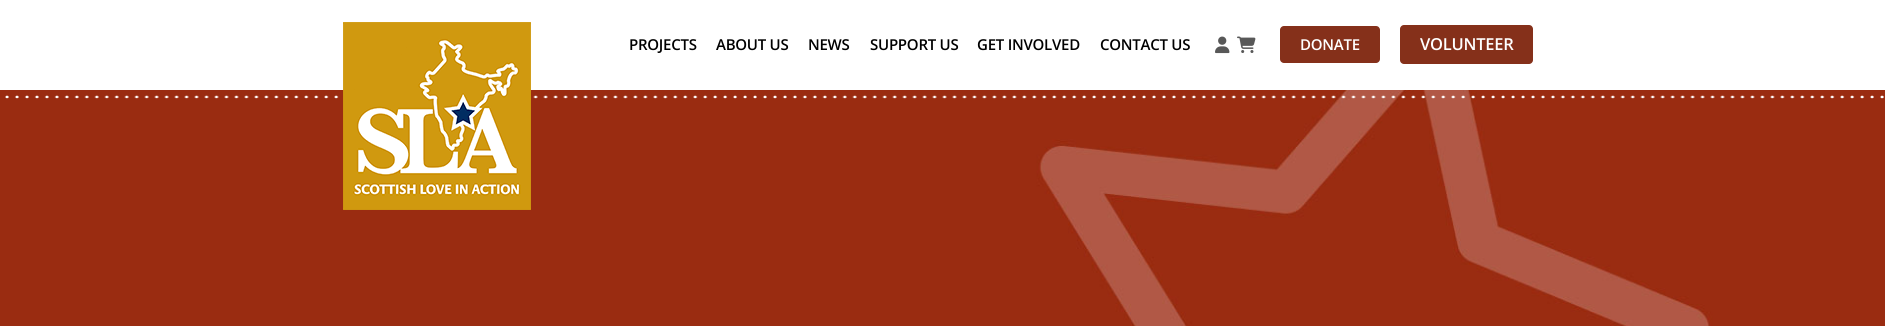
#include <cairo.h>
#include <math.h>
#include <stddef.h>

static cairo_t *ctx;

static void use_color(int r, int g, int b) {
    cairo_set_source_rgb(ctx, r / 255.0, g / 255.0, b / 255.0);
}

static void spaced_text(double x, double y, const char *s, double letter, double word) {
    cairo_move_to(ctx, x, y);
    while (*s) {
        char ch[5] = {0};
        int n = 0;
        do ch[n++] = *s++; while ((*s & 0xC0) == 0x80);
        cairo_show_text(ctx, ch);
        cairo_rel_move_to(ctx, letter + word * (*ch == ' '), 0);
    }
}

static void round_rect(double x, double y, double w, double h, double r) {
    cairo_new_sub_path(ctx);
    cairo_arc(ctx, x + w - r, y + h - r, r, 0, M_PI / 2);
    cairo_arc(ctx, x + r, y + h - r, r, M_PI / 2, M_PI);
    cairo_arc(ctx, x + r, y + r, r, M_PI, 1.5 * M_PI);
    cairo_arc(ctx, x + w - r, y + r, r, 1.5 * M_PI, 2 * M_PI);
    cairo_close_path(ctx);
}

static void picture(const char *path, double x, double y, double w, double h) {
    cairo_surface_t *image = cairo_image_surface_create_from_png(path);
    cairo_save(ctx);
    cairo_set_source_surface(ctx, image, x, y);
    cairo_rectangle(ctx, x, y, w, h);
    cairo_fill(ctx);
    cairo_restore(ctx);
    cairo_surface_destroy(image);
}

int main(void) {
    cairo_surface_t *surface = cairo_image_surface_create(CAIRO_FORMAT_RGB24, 1885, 326);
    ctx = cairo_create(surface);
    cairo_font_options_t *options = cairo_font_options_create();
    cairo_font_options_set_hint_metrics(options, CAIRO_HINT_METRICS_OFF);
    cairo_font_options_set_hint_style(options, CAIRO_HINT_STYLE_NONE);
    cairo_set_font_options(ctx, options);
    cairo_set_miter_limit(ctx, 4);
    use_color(255, 255, 255);
    cairo_paint(ctx);
    picture("img4.png", 0, 90, 1885, 236);
    picture("img5.png", 5, 95, 1879, 4);
    picture("img1.png", 343, 22, 188, 188);
    cairo_select_font_face(ctx, "Open Sans SemiBold", CAIRO_FONT_SLANT_NORMAL, CAIRO_FONT_WEIGHT_NORMAL);
    cairo_set_font_size(ctx, 15);
    use_color(0, 0, 0);
    spaced_text(629, 50, "PROJECTS", -0.25, 0);
    spaced_text(716, 50, "ABOUT US", -0.25, 0);
    spaced_text(808, 50, "NEWS", -0.25, 0);
    spaced_text(870, 50, "SUPPORT US", -0.25, 0);
    spaced_text(977, 50, "GET INVOLVED", -0.25, 0);
    spaced_text(1100, 50, "CONTACT US", -0.25, 0);
    picture("img2.png", 1215, 36, 15, 18);
    picture("img3.png", 1237, 36, 19, 17);
    use_color(133, 48, 26);
    round_rect(1280, 26, 100, 37, 4);
    cairo_fill(ctx);
    use_color(255, 255, 255);
    spaced_text(1300, 50, "DONATE", -0.25, 0);
    use_color(133, 48, 26);
    round_rect(1400, 25, 133, 39, 4);
    cairo_fill(ctx);
    cairo_set_font_size(ctx, 16.5);
    use_color(255, 255, 255);
    spaced_text(1420, 50, "VOLUNTEER", -0.25, 0);
    cairo_surface_write_to_png(surface, "result.png");
    cairo_font_options_destroy(options);
    cairo_destroy(ctx);
    cairo_surface_destroy(surface);
    return 0;
}
